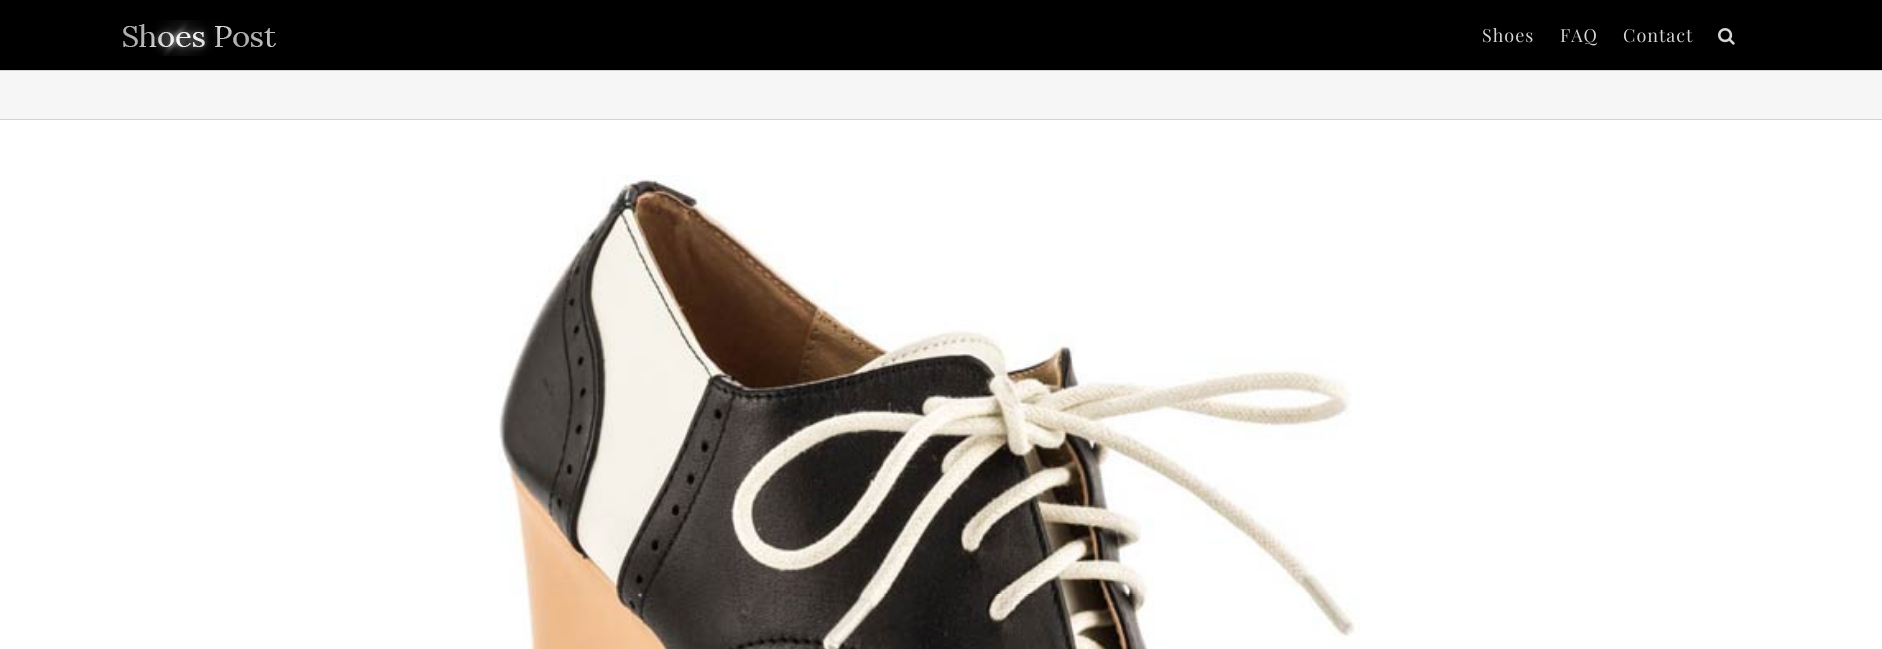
#include <cairo.h>
#include <math.h>
#include <stddef.h>

static cairo_t *ctx;

static void use_color(int r, int g, int b) {
    cairo_set_source_rgb(ctx, r / 255.0, g / 255.0, b / 255.0);
}

static void spaced_text(double x, double y, const char *s, double letter, double word) {
    cairo_move_to(ctx, x, y);
    while (*s) {
        char ch[5] = {0};
        int n = 0;
        do ch[n++] = *s++; while ((*s & 0xC0) == 0x80);
        cairo_show_text(ctx, ch);
        cairo_rel_move_to(ctx, letter + word * (*ch == ' '), 0);
    }
}

static void picture(const char *path, double x, double y, double w, double h) {
    cairo_surface_t *image = cairo_image_surface_create_from_png(path);
    cairo_save(ctx);
    cairo_set_source_surface(ctx, image, x, y);
    cairo_rectangle(ctx, x, y, w, h);
    cairo_fill(ctx);
    cairo_restore(ctx);
    cairo_surface_destroy(image);
}

int main(void) {
    cairo_surface_t *surface = cairo_image_surface_create(CAIRO_FORMAT_RGB24, 1882, 649);
    ctx = cairo_create(surface);
    cairo_font_options_t *options = cairo_font_options_create();
    cairo_font_options_set_hint_metrics(options, CAIRO_HINT_METRICS_OFF);
    cairo_font_options_set_hint_style(options, CAIRO_HINT_STYLE_NONE);
    cairo_set_font_options(ctx, options);
    cairo_set_miter_limit(ctx, 4);
    use_color(255, 255, 255);
    cairo_paint(ctx);
    use_color(0, 0, 0);
    cairo_rectangle(ctx, 0, 0, 1882, 70);
    cairo_fill(ctx);
    picture("img1.png", 123, 20, 153, 36);
    cairo_select_font_face(ctx, "Playfair Display", CAIRO_FONT_SLANT_NORMAL, CAIRO_FONT_WEIGHT_NORMAL);
    cairo_set_font_size(ctx, 18);
    use_color(214, 214, 214);
    spaced_text(1482, 42, "Shoes", 1, 0);
    spaced_text(1560, 42, "FAQ", 1, 0);
    spaced_text(1623, 42, "Contact", 1, 0);
    picture("img2.png", 1718, 28, 17, 17);
    use_color(246, 246, 246);
    cairo_rectangle(ctx, 0, 71, 1882, 48);
    cairo_fill(ctx);
    use_color(210, 211, 212);
    cairo_rectangle(ctx, 0, 70, 1882, 1);
    cairo_fill(ctx);
    cairo_rectangle(ctx, 0, 119, 1882, 1);
    cairo_fill(ctx);
    picture("img3.png", 498, 175, 862, 474);
    cairo_surface_write_to_png(surface, "result.png");
    cairo_font_options_destroy(options);
    cairo_destroy(ctx);
    cairo_surface_destroy(surface);
    return 0;
}
